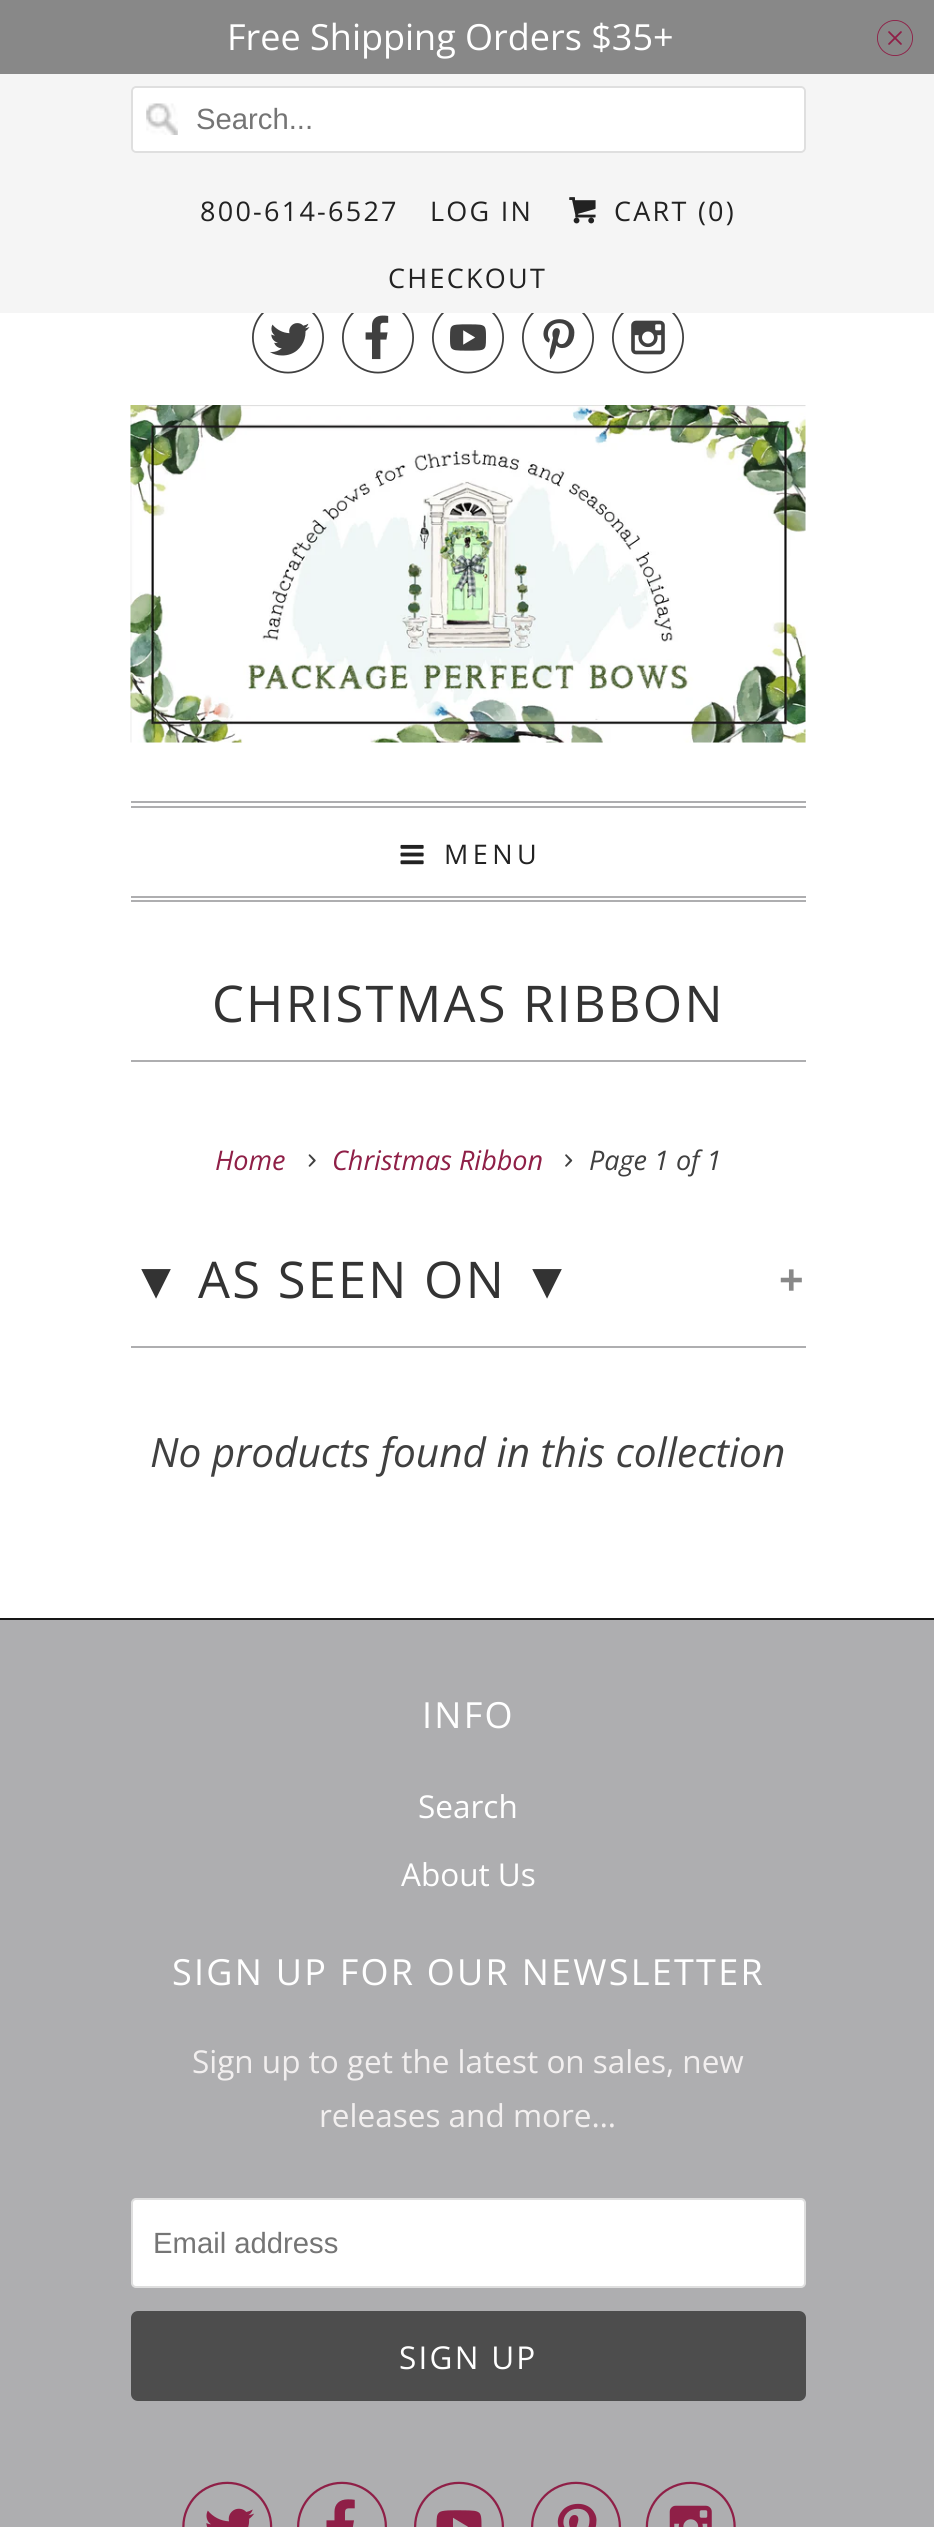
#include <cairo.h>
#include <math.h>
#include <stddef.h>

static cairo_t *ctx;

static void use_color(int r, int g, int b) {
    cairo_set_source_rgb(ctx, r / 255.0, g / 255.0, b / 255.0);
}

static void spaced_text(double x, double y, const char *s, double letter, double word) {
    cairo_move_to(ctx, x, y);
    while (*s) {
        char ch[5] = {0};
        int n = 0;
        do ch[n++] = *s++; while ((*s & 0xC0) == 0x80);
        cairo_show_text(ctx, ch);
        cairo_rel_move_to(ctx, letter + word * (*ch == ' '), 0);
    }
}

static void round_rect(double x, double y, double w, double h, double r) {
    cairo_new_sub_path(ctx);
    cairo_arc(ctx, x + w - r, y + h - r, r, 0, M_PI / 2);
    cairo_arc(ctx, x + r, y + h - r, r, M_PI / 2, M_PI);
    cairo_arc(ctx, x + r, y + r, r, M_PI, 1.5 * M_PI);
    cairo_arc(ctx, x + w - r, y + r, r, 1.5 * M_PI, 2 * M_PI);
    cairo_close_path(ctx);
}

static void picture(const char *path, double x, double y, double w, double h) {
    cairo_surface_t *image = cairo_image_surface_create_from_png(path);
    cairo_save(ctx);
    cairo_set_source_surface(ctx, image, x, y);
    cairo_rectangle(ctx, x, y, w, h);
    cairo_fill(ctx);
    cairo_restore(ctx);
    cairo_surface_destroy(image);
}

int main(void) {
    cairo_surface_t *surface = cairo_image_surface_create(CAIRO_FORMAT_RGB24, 934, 2527);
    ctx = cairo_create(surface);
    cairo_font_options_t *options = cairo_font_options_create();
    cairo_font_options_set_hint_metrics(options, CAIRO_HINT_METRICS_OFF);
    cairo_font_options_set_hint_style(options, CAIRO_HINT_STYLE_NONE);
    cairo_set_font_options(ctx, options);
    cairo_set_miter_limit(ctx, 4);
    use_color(255, 255, 255);
    cairo_paint(ctx);
    use_color(136, 136, 136);
    cairo_rectangle(ctx, 0, 0, 934, 74);
    cairo_fill(ctx);
    cairo_select_font_face(ctx, "Open Sans", CAIRO_FONT_SLANT_NORMAL, CAIRO_FONT_WEIGHT_NORMAL);
    cairo_set_font_size(ctx, 36);
    use_color(255, 255, 255);
    cairo_move_to(ctx, 227, 50);
    cairo_show_text(ctx, "Free Shipping Orders $35+");
    cairo_select_font_face(ctx, "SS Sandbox", CAIRO_FONT_SLANT_NORMAL, CAIRO_FONT_WEIGHT_NORMAL);
    use_color(143, 31, 71);
    cairo_move_to(ctx, 877, 56);
    cairo_show_text(ctx, "␡");
    use_color(245, 245, 245);
    cairo_rectangle(ctx, 0, 74, 934, 239);
    cairo_fill(ctx);
    use_color(255, 255, 255);
    round_rect(131, 86, 675, 67, 5);
    cairo_fill(ctx);
    picture("img1.png", 146, 103, 32, 32);
    round_rect(132, 87, 673, 65, 4);
    use_color(223, 223, 223);
    cairo_stroke(ctx);
    cairo_select_font_face(ctx, "Liberation Sans", CAIRO_FONT_SLANT_NORMAL, CAIRO_FONT_WEIGHT_NORMAL);
    cairo_set_font_size(ctx, 29.25);
    use_color(117, 117, 117);
    cairo_move_to(ctx, 196, 129);
    cairo_show_text(ctx, "Search...");
    cairo_select_font_face(ctx, "Open Sans", CAIRO_FONT_SLANT_NORMAL, CAIRO_FONT_WEIGHT_NORMAL);
    cairo_set_font_size(ctx, 27);
    use_color(34, 34, 34);
    spaced_text(200, 221, "800-614-6527", 2.25, 0);
    spaced_text(430, 221, "LOG IN", 2.25, 0);
    picture("img2.png", 569, 197, 27, 27);
    spaced_text(614, 221, "CART (0)", 2.25, 0);
    spaced_text(388, 288, "CHECKOUT", 2.25, 0);
    picture("img3.png", 252, 313, 72, 61);
    picture("img4.png", 342, 313, 72, 61);
    picture("img5.png", 432, 313, 72, 61);
    picture("img6.png", 522, 313, 72, 61);
    picture("img7.png", 612, 313, 72, 61);
    picture("img8.png", 130, 405, 676, 338);
    use_color(174, 174, 176);
    cairo_rectangle(ctx, 131, 801, 675, 2);
    cairo_fill(ctx);
    cairo_rectangle(ctx, 131, 806, 675, 2);
    cairo_fill(ctx);
    cairo_rectangle(ctx, 131, 896, 675, 2);
    cairo_fill(ctx);
    cairo_rectangle(ctx, 131, 900, 675, 2);
    cairo_fill(ctx);
    picture("img9.png", 400, 844, 24, 21);
    use_color(34, 34, 34);
    spaced_text(444, 864, "MENU", 4.5, 0);
    use_color(174, 174, 176);
    cairo_rectangle(ctx, 131, 1060, 675, 2);
    cairo_fill(ctx);
    cairo_set_font_size(ctx, 50.6);
    use_color(51, 51, 51);
    spaced_text(212, 1022, "CHRISTMAS RIBBON", 2.25, 0);
    cairo_select_font_face(ctx, "Open Sans", CAIRO_FONT_SLANT_ITALIC, CAIRO_FONT_WEIGHT_NORMAL);
    cairo_set_font_size(ctx, 27);
    use_color(143, 31, 71);
    cairo_move_to(ctx, 215, 1170);
    cairo_show_text(ctx, "Home");
    picture("img10.png", 308, 1154, 8, 13);
    cairo_move_to(ctx, 332, 1170);
    cairo_show_text(ctx, "Christmas Ribbon");
    picture("img11.png", 565, 1154, 8, 13);
    use_color(64, 64, 64);
    cairo_move_to(ctx, 589, 1170);
    cairo_show_text(ctx, "Page 1 of 1");
    use_color(174, 174, 176);
    cairo_rectangle(ctx, 131, 1346, 675, 2);
    cairo_fill(ctx);
    cairo_select_font_face(ctx, "Liberation Sans", CAIRO_FONT_SLANT_NORMAL, CAIRO_FONT_WEIGHT_NORMAL);
    cairo_set_font_size(ctx, 50.6);
    use_color(51, 51, 51);
    spaced_text(131, 1298, "▼", 2.25, 0);
    cairo_select_font_face(ctx, "Open Sans", CAIRO_FONT_SLANT_NORMAL, CAIRO_FONT_WEIGHT_NORMAL);
    spaced_text(198, 1298, "AS SEEN ON", 2.25, 0);
    cairo_select_font_face(ctx, "Liberation Sans", CAIRO_FONT_SLANT_NORMAL, CAIRO_FONT_WEIGHT_NORMAL);
    spaced_text(522, 1298, "▼", 2.25, 0);
    cairo_select_font_face(ctx, "Liberation Sans", CAIRO_FONT_SLANT_NORMAL, CAIRO_FONT_WEIGHT_BOLD);
    cairo_set_font_size(ctx, 42);
    use_color(136, 136, 136);
    spaced_text(779, 1294, "+", 2.25, 0);
    cairo_select_font_face(ctx, "Open Sans", CAIRO_FONT_SLANT_ITALIC, CAIRO_FONT_WEIGHT_NORMAL);
    cairo_set_font_size(ctx, 40.5);
    use_color(64, 64, 64);
    cairo_move_to(ctx, 150, 1467);
    cairo_show_text(ctx, "No products found in this collection");
    use_color(174, 174, 176);
    cairo_rectangle(ctx, 0, 1620, 934, 907);
    cairo_fill(ctx);
    use_color(22, 22, 22);
    cairo_rectangle(ctx, 0, 1618, 934, 2);
    cairo_fill(ctx);
    cairo_select_font_face(ctx, "Open Sans", CAIRO_FONT_SLANT_NORMAL, CAIRO_FONT_WEIGHT_NORMAL);
    cairo_set_font_size(ctx, 36);
    use_color(255, 255, 255);
    spaced_text(422, 1728, "INFO", 2.25, 0);
    cairo_set_font_size(ctx, 31.5);
    cairo_move_to(ctx, 418, 1818);
    cairo_show_text(ctx, "Search");
    cairo_move_to(ctx, 401, 1886);
    cairo_show_text(ctx, "About Us");
    cairo_set_font_size(ctx, 36);
    spaced_text(172, 1985, "SIGN UP FOR OUR NEWSLETTER", 2.25, 0);
    cairo_set_font_size(ctx, 31.5);
    use_color(242, 239, 239);
    cairo_move_to(ctx, 192, 2073);
    cairo_show_text(ctx, "Sign up to get the latest on sales, new");
    cairo_move_to(ctx, 319, 2127);
    cairo_show_text(ctx, "releases and more…");
    use_color(255, 255, 255);
    round_rect(132, 2199, 673, 88, 4);
    cairo_fill_preserve(ctx);
    use_color(223, 223, 223);
    cairo_stroke(ctx);
    cairo_select_font_face(ctx, "Liberation Sans", CAIRO_FONT_SLANT_NORMAL, CAIRO_FONT_WEIGHT_NORMAL);
    cairo_set_font_size(ctx, 29.25);
    use_color(117, 117, 117);
    cairo_move_to(ctx, 153, 2253);
    cairo_show_text(ctx, "Email address");
    use_color(77, 77, 77);
    round_rect(132, 2312, 673, 88, 6);
    cairo_fill_preserve(ctx);
    cairo_stroke(ctx);
    cairo_select_font_face(ctx, "Open Sans", CAIRO_FONT_SLANT_NORMAL, CAIRO_FONT_WEIGHT_NORMAL);
    cairo_set_font_size(ctx, 31.5);
    use_color(255, 255, 255);
    spaced_text(399, 2369, "SIGN UP", 2.25, 0);
    picture("img12.png", 182, 2481, 91, 46);
    picture("img13.png", 297, 2481, 90, 46);
    picture("img14.png", 414, 2481, 90, 46);
    picture("img15.png", 531, 2481, 90, 46);
    picture("img16.png", 645, 2481, 91, 46);
    cairo_surface_write_to_png(surface, "result.png");
    cairo_font_options_destroy(options);
    cairo_destroy(ctx);
    cairo_surface_destroy(surface);
    return 0;
}
